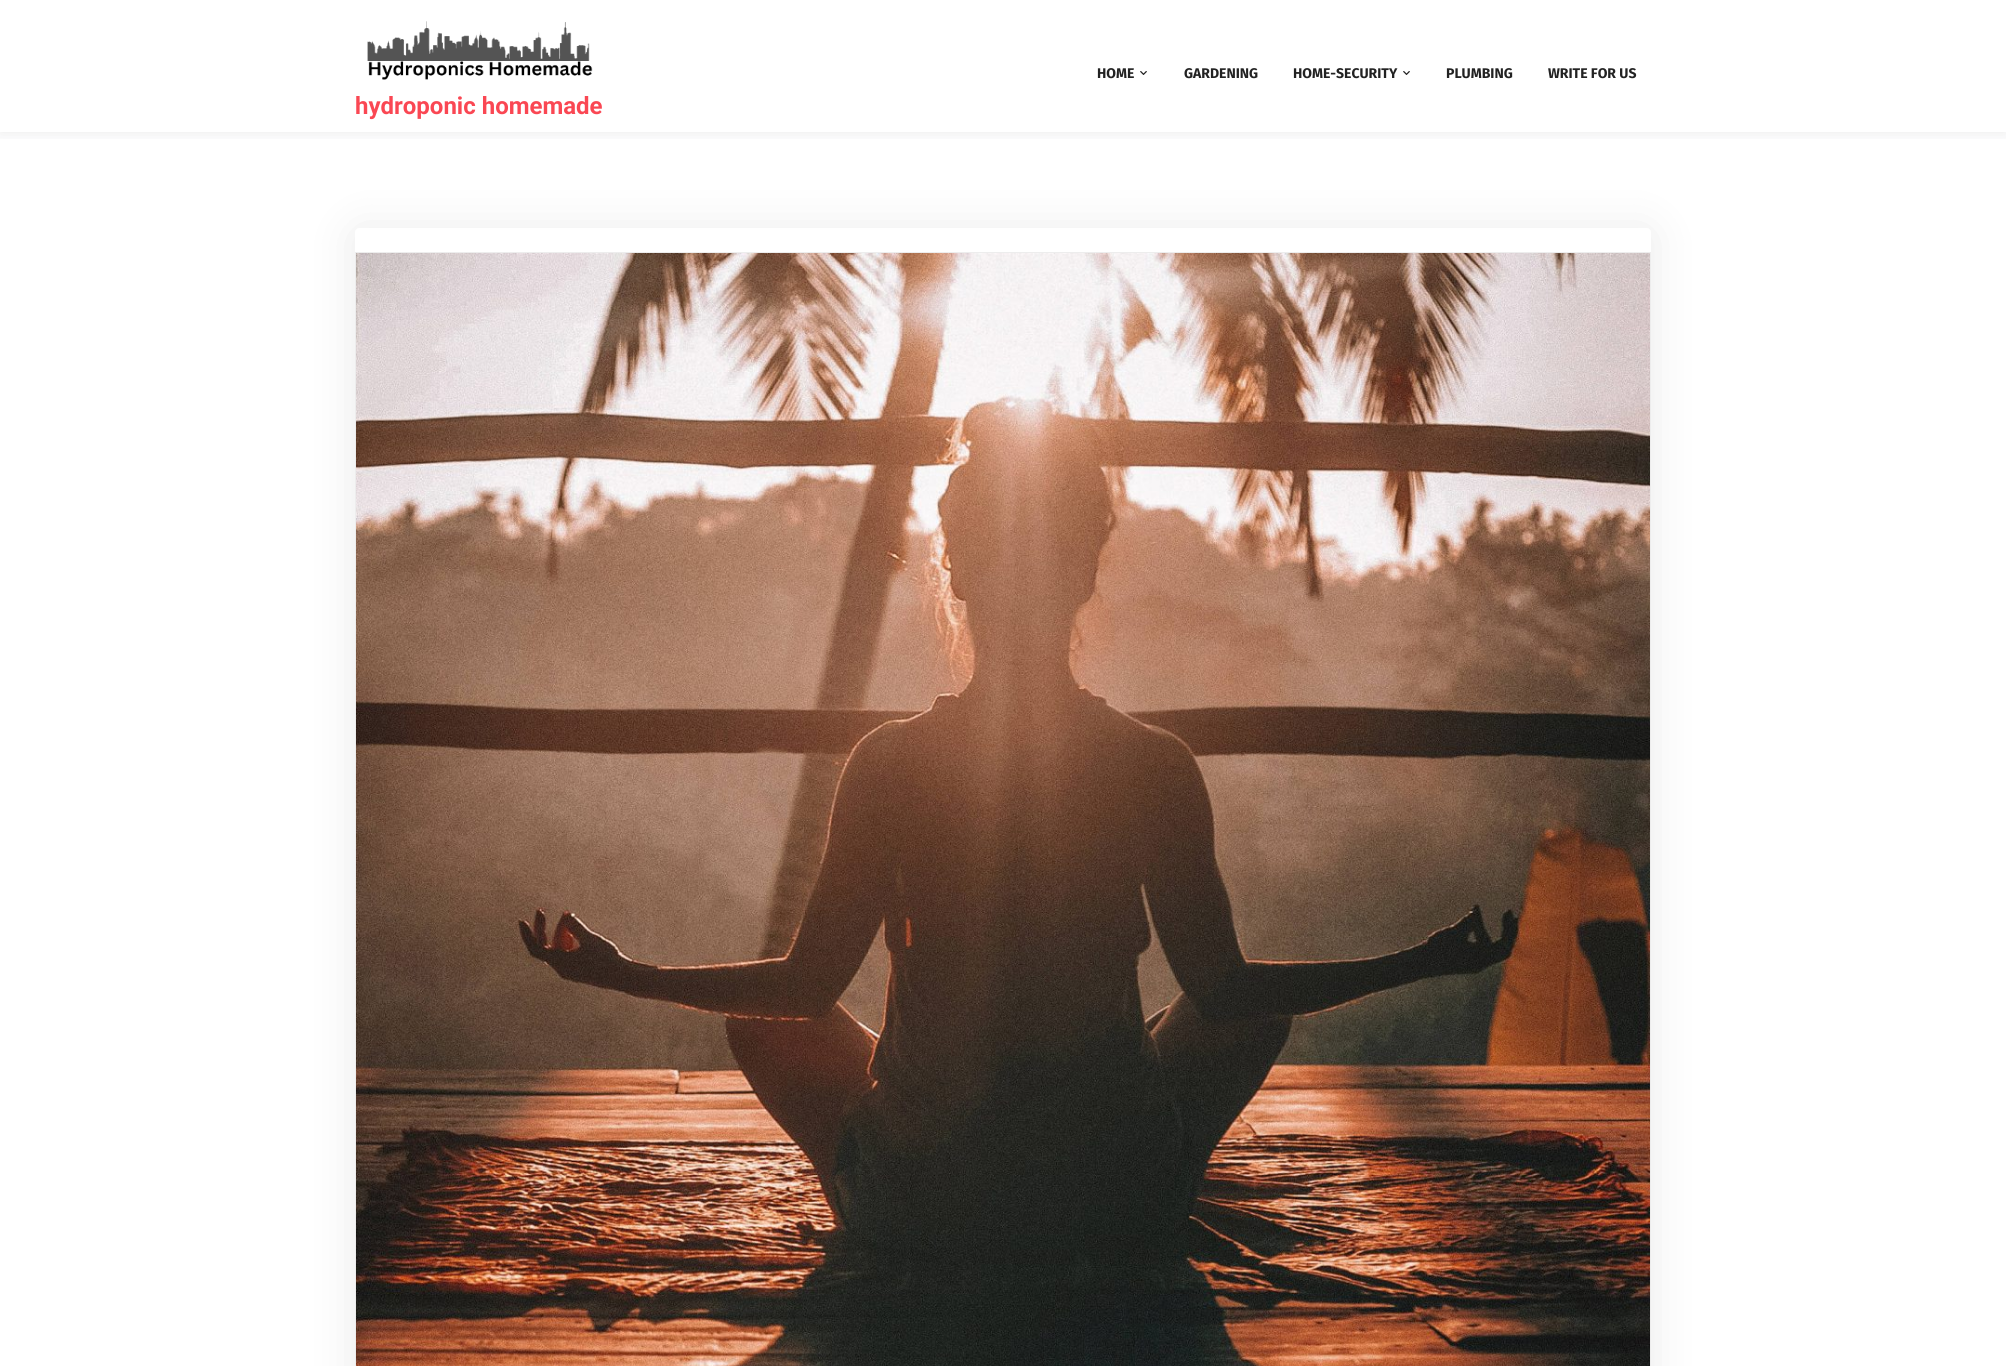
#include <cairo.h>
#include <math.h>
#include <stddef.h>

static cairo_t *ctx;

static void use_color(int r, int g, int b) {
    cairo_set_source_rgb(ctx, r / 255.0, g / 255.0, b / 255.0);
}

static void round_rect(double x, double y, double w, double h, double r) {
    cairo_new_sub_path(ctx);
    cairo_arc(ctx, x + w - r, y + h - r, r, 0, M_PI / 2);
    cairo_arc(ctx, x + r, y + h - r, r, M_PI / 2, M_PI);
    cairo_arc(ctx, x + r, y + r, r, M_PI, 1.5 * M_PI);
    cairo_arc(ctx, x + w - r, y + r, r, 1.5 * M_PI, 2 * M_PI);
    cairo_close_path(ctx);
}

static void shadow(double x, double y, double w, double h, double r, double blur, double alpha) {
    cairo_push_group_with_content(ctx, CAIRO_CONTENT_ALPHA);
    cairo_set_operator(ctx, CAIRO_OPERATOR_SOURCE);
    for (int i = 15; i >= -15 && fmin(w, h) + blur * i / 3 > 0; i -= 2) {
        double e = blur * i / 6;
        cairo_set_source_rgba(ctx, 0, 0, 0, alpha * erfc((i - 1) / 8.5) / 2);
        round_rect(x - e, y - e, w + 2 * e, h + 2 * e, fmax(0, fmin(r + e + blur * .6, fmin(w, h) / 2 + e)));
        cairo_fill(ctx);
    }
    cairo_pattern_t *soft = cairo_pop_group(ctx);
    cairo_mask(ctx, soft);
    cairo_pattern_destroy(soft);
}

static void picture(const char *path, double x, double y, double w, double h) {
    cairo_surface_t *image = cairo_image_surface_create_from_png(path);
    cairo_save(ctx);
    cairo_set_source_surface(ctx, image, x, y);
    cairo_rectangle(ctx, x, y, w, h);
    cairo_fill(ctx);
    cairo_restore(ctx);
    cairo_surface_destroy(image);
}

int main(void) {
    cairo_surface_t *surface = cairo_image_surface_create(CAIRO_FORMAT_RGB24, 2006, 1366);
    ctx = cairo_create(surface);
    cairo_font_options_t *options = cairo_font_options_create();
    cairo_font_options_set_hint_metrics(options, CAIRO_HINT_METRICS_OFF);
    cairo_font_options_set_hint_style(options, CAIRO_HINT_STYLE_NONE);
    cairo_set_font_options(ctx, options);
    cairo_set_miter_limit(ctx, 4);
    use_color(255, 255, 255);
    cairo_paint(ctx);
    cairo_save(ctx);
    cairo_rectangle(ctx, 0, 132, 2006, 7);
    cairo_clip(ctx);
    use_color(17, 17, 26);
    shadow(0, 0, 2006, 132, 0, 8, 0.1);
    cairo_restore(ctx);
    cairo_select_font_face(ctx, "Fira Sans", CAIRO_FONT_SLANT_NORMAL, CAIRO_FONT_WEIGHT_BOLD);
    cairo_set_font_size(ctx, 14);
    use_color(34, 34, 34);
    cairo_move_to(ctx, 1097, 78);
    cairo_show_text(ctx, "HOME");
    picture("img1.png", 1140, 71, 7, 4);
    cairo_move_to(ctx, 1184, 78);
    cairo_show_text(ctx, "GARDENING");
    cairo_move_to(ctx, 1293, 78);
    cairo_show_text(ctx, "HOME-SECURITY");
    picture("img1.png", 1403, 71, 7, 4);
    cairo_move_to(ctx, 1446, 78);
    cairo_show_text(ctx, "PLUMBING");
    cairo_move_to(ctx, 1548, 78);
    cairo_show_text(ctx, "WRITE FOR US");
    picture("img2.png", 367, 21, 226, 59);
    cairo_select_font_face(ctx, "Roboto", CAIRO_FONT_SLANT_NORMAL, CAIRO_FONT_WEIGHT_BOLD);
    cairo_set_font_size(ctx, 24);
    use_color(250, 71, 83);
    cairo_move_to(ctx, 355, 114);
    cairo_show_text(ctx, "hydroponic homemade");
    cairo_save(ctx);
    cairo_set_fill_rule(ctx, CAIRO_FILL_RULE_EVEN_ODD);
    cairo_new_path(ctx);
    cairo_move_to(ctx, 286, 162);
    cairo_line_to(ctx, 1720, 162);
    cairo_line_to(ctx, 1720, 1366);
    cairo_line_to(ctx, 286, 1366);
    cairo_close_path(ctx);
    cairo_move_to(ctx, 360, 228);
    cairo_line_to(ctx, 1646, 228);
    cairo_curve_to(ctx, 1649, 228, 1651, 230, 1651, 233);
    cairo_line_to(ctx, 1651, 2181);
    cairo_curve_to(ctx, 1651, 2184, 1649, 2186, 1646, 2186);
    cairo_line_to(ctx, 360, 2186);
    cairo_curve_to(ctx, 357, 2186, 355, 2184, 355, 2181);
    cairo_line_to(ctx, 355, 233);
    cairo_curve_to(ctx, 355, 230, 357, 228, 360, 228);
    cairo_close_path(ctx);
    cairo_clip(ctx);
    use_color(36, 36, 36);
    shadow(355, 231, 1296, 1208, 5, 22.5, 0.1);
    cairo_restore(ctx);
    cairo_rectangle(ctx, 355.5, 252.5, 1295, 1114);
    use_color(237, 237, 237);
    cairo_set_line_width(ctx, 1);
    cairo_stroke(ctx);
    picture("img3.png", 356, 253, 1294, 1113);
    cairo_surface_write_to_png(surface, "result.png");
    cairo_font_options_destroy(options);
    cairo_destroy(ctx);
    cairo_surface_destroy(surface);
    return 0;
}
